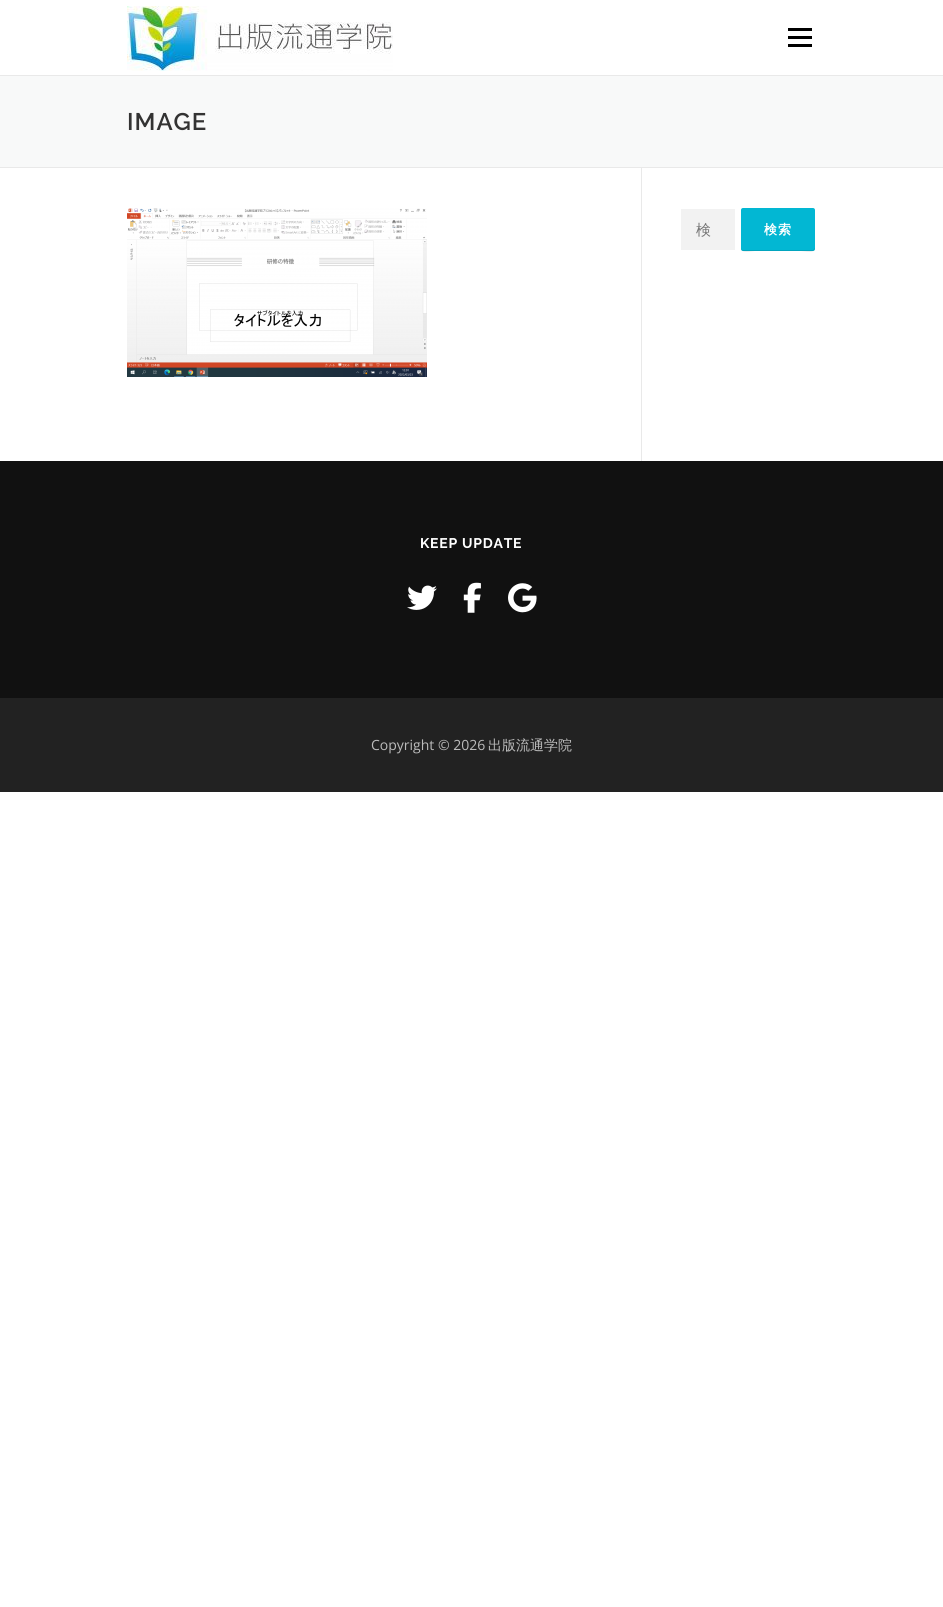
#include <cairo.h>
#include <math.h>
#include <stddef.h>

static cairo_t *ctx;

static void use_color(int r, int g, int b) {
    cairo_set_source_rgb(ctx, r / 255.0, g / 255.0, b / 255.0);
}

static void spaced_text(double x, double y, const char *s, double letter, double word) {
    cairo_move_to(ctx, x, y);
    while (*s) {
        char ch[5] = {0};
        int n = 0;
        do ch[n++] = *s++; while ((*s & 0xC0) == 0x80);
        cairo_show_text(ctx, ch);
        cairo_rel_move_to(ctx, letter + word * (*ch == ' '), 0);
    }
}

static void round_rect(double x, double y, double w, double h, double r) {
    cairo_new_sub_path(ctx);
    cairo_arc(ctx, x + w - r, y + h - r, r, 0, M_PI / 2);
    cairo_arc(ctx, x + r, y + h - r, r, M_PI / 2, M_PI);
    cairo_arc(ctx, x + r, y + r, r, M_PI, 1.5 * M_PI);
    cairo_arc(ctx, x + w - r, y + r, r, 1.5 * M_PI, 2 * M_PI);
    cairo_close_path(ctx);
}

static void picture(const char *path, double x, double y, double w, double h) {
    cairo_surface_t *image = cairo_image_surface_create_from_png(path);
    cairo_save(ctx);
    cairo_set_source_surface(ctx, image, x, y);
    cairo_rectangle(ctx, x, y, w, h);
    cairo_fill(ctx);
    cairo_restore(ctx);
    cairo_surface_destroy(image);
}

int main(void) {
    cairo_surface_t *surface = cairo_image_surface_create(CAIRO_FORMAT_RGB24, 943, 1607);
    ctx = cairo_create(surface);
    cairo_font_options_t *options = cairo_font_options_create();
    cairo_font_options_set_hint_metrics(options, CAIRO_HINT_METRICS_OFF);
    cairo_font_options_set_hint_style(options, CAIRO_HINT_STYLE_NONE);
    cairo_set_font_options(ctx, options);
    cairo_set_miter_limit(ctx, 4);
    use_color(255, 255, 255);
    cairo_paint(ctx);
    picture("img1.png", 127, 6, 266, 65);
    use_color(0, 0, 0);
    cairo_rectangle(ctx, 788, 36, 24, 3);
    cairo_fill(ctx);
    cairo_rectangle(ctx, 788, 28, 24, 3);
    cairo_fill(ctx);
    cairo_rectangle(ctx, 788, 44, 24, 3);
    cairo_fill(ctx);
    use_color(248, 249, 249);
    cairo_rectangle(ctx, 0, 76, 943, 91);
    cairo_fill(ctx);
    use_color(233, 233, 233);
    cairo_rectangle(ctx, 0, 75, 943, 1);
    cairo_fill(ctx);
    cairo_rectangle(ctx, 0, 167, 943, 1);
    cairo_fill(ctx);
    cairo_select_font_face(ctx, "Raleway SemiBold", CAIRO_FONT_SLANT_NORMAL, CAIRO_FONT_WEIGHT_NORMAL);
    cairo_set_font_size(ctx, 24);
    use_color(51, 51, 51);
    spaced_text(127, 130, "IMAGE", 1, 0);
    use_color(233, 233, 233);
    cairo_rectangle(ctx, 641, 168, 1, 293);
    cairo_fill(ctx);
    picture("img2.png", 127, 208, 300, 169);
    use_color(242, 242, 242);
    cairo_rectangle(ctx, 681, 209, 54, 41);
    cairo_fill(ctx);
    cairo_select_font_face(ctx, "WenQuanYi Zen Hei Medium", CAIRO_FONT_SLANT_NORMAL, CAIRO_FONT_WEIGHT_NORMAL);
    cairo_set_font_size(ctx, 15);
    use_color(117, 117, 117);
    cairo_move_to(ctx, 696, 235);
    cairo_show_text(ctx, "検");
    use_color(2, 183, 211);
    round_rect(741, 208, 74, 43, 2);
    cairo_fill(ctx);
    cairo_set_source_rgba(ctx, 0, 0, 0, 0.1);
    cairo_new_path(ctx);
    cairo_move_to(ctx, 741, 248);
    cairo_curve_to(ctx, 741, 254, 751, 251, 755, 251);
    cairo_line_to(ctx, 801, 251);
    cairo_curve_to(ctx, 805, 251, 815, 254, 815, 248);
    cairo_line_to(ctx, 814, 249);
    cairo_line_to(ctx, 813, 250);
    cairo_line_to(ctx, 743, 250);
    cairo_curve_to(ctx, 742, 250, 741, 249, 741, 248);
    cairo_close_path(ctx);
    cairo_fill(ctx);
    cairo_select_font_face(ctx, "WenQuanYi Zen Hei", CAIRO_FONT_SLANT_NORMAL, CAIRO_FONT_WEIGHT_BOLD);
    cairo_set_font_size(ctx, 13);
    use_color(255, 255, 255);
    spaced_text(764, 234, "検索", 1, 0);
    use_color(17, 17, 17);
    cairo_rectangle(ctx, 0, 461, 943, 237);
    cairo_fill(ctx);
    cairo_select_font_face(ctx, "Raleway", CAIRO_FONT_SLANT_NORMAL, CAIRO_FONT_WEIGHT_BOLD);
    cairo_set_font_size(ctx, 14);
    use_color(255, 255, 255);
    spaced_text(420, 548, "KEEP UPDATE", 0.75, 0);
    picture("img3.png", 407, 585, 30, 25);
    picture("img4.png", 463, 582, 18, 31);
    picture("img5.png", 508, 583, 29, 30);
    use_color(34, 34, 34);
    cairo_rectangle(ctx, 0, 698, 943, 94);
    cairo_fill(ctx);
    cairo_select_font_face(ctx, "Open Sans", CAIRO_FONT_SLANT_NORMAL, CAIRO_FONT_WEIGHT_NORMAL);
    use_color(187, 187, 187);
    cairo_move_to(ctx, 371, 750);
    cairo_show_text(ctx, "Copyright © 2026");
    cairo_select_font_face(ctx, "WenQuanYi Zen Hei Medium", CAIRO_FONT_SLANT_NORMAL, CAIRO_FONT_WEIGHT_NORMAL);
    cairo_move_to(ctx, 488, 750);
    cairo_show_text(ctx, "出版流通学院");
    cairo_surface_write_to_png(surface, "result.png");
    cairo_font_options_destroy(options);
    cairo_destroy(ctx);
    cairo_surface_destroy(surface);
    return 0;
}
